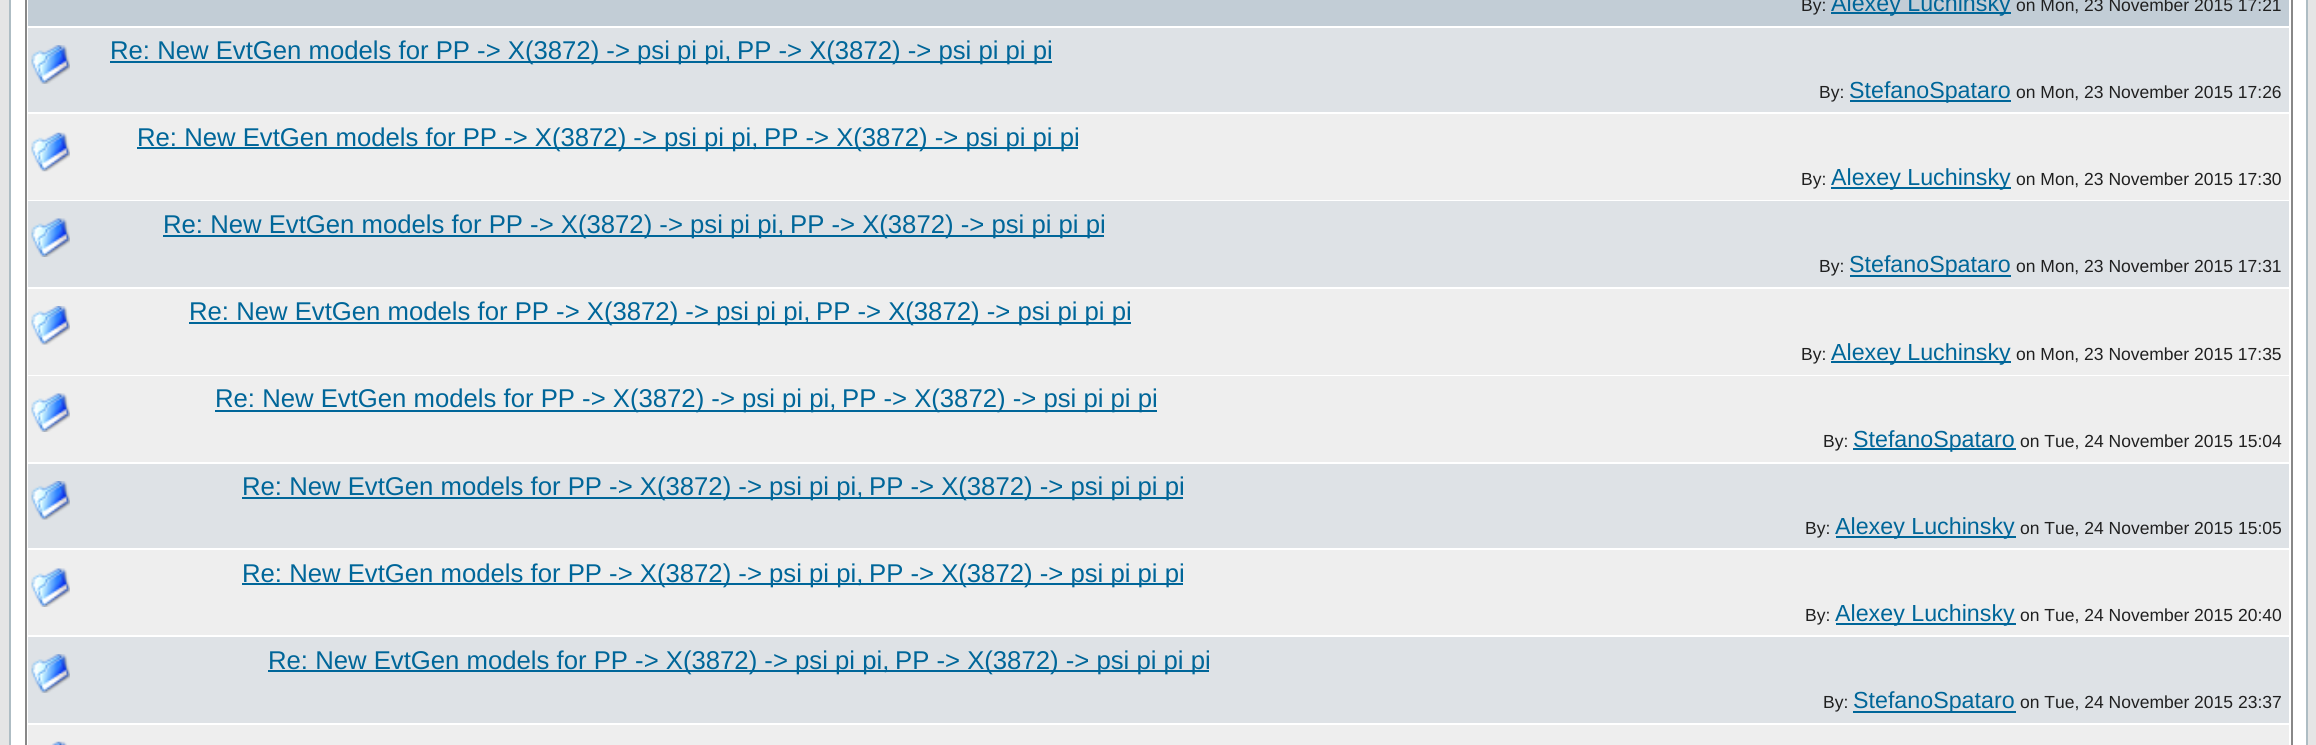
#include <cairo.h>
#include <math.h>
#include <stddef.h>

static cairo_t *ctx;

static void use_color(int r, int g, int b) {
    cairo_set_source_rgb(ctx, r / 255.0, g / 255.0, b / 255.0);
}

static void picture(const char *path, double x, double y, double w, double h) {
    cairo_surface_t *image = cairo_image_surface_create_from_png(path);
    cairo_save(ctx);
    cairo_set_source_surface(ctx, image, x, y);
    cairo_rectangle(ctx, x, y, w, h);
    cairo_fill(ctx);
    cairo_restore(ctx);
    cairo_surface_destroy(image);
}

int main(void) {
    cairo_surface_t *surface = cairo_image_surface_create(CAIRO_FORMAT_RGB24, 2316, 745);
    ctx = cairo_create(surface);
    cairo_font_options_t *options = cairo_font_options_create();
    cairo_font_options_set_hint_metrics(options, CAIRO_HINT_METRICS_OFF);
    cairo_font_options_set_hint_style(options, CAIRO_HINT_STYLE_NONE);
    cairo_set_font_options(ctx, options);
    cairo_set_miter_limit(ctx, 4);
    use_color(229, 229, 229);
    cairo_paint(ctx);
    use_color(255, 255, 255);
    cairo_rectangle(ctx, 10, -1, 2297, 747);
    cairo_fill_preserve(ctx);
    use_color(174, 189, 196);
    cairo_stroke(ctx);
    cairo_rectangle(ctx, 26, -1, 2266, 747);
    use_color(136, 136, 136);
    cairo_stroke(ctx);
    use_color(194, 205, 214);
    cairo_rectangle(ctx, 28, 0, 2261, 26);
    cairo_fill(ctx);
    cairo_select_font_face(ctx, "Liberation Sans", CAIRO_FONT_SLANT_NORMAL, CAIRO_FONT_WEIGHT_NORMAL);
    cairo_set_font_size(ctx, 17.5);
    use_color(32, 32, 32);
    cairo_move_to(ctx, 1801, 11);
    cairo_show_text(ctx, "By:");
    use_color(0, 102, 153);
    cairo_rectangle(ctx, 1831, 12, 180, 2);
    cairo_fill(ctx);
    cairo_set_font_size(ctx, 23.25);
    cairo_move_to(ctx, 1831, 11);
    cairo_show_text(ctx, "Alexey Luchinsky");
    cairo_set_font_size(ctx, 17.5);
    use_color(32, 32, 32);
    cairo_move_to(ctx, 2016, 11);
    cairo_show_text(ctx, "on Mon, 23 November 2015 17:21");
    use_color(222, 226, 230);
    cairo_rectangle(ctx, 28, 28, 2261, 84);
    cairo_fill(ctx);
    picture("img1.png", 31, 45, 39, 39);
    use_color(0, 102, 153);
    cairo_rectangle(ctx, 110, 61, 942, 2);
    cairo_fill(ctx);
    cairo_set_font_size(ctx, 25.7);
    cairo_move_to(ctx, 110, 59);
    cairo_show_text(ctx, "Re: New EvtGen models for PP -> X(3872) -> psi pi pi,");
    cairo_move_to(ctx, 737, 59);
    cairo_show_text(ctx, "PP -> X(3872) -> psi pi pi pi");
    cairo_set_font_size(ctx, 17.5);
    use_color(32, 32, 32);
    cairo_move_to(ctx, 1819, 98);
    cairo_show_text(ctx, "By:");
    use_color(0, 102, 153);
    cairo_rectangle(ctx, 1850, 100, 161, 2);
    cairo_fill(ctx);
    cairo_set_font_size(ctx, 23.25);
    cairo_move_to(ctx, 1849, 98);
    cairo_show_text(ctx, "StefanoSpataro");
    cairo_set_font_size(ctx, 17.5);
    use_color(32, 32, 32);
    cairo_move_to(ctx, 2016, 98);
    cairo_show_text(ctx, "on Mon, 23 November 2015 17:26");
    use_color(238, 238, 238);
    cairo_rectangle(ctx, 28, 114, 2261, 86);
    cairo_fill(ctx);
    picture("img2.png", 31, 132, 39, 40);
    use_color(0, 102, 153);
    cairo_rectangle(ctx, 137, 147, 941, 2);
    cairo_fill(ctx);
    cairo_set_font_size(ctx, 25.7);
    cairo_move_to(ctx, 137, 146);
    cairo_show_text(ctx, "Re: New EvtGen models for PP -> X(3872) -> psi pi pi,");
    cairo_move_to(ctx, 764, 146);
    cairo_show_text(ctx, "PP -> X(3872) -> psi pi pi pi");
    cairo_set_font_size(ctx, 17.5);
    use_color(32, 32, 32);
    cairo_move_to(ctx, 1801, 185);
    cairo_show_text(ctx, "By:");
    use_color(0, 102, 153);
    cairo_rectangle(ctx, 1831, 187, 180, 2);
    cairo_fill(ctx);
    cairo_set_font_size(ctx, 23.25);
    cairo_move_to(ctx, 1831, 185);
    cairo_show_text(ctx, "Alexey Luchinsky");
    cairo_set_font_size(ctx, 17.5);
    use_color(32, 32, 32);
    cairo_move_to(ctx, 2016, 185);
    cairo_show_text(ctx, "on Mon, 23 November 2015 17:30");
    use_color(222, 226, 230);
    cairo_rectangle(ctx, 28, 201, 2261, 86);
    cairo_fill(ctx);
    picture("img3.png", 31, 218, 39, 39);
    use_color(0, 102, 153);
    cairo_rectangle(ctx, 163, 235, 941, 2);
    cairo_fill(ctx);
    cairo_set_font_size(ctx, 25.7);
    cairo_move_to(ctx, 163, 233);
    cairo_show_text(ctx, "Re: New EvtGen models for PP -> X(3872) -> psi pi pi,");
    cairo_move_to(ctx, 790, 233);
    cairo_show_text(ctx, "PP -> X(3872) -> psi pi pi pi");
    cairo_set_font_size(ctx, 17.5);
    use_color(32, 32, 32);
    cairo_move_to(ctx, 1819, 272);
    cairo_show_text(ctx, "By:");
    use_color(0, 102, 153);
    cairo_rectangle(ctx, 1850, 275, 161, 2);
    cairo_fill(ctx);
    cairo_set_font_size(ctx, 23.25);
    cairo_move_to(ctx, 1849, 272);
    cairo_show_text(ctx, "StefanoSpataro");
    cairo_set_font_size(ctx, 17.5);
    use_color(32, 32, 32);
    cairo_move_to(ctx, 2016, 272);
    cairo_show_text(ctx, "on Mon, 23 November 2015 17:31");
    use_color(238, 238, 238);
    cairo_rectangle(ctx, 28, 289, 2261, 86);
    cairo_fill(ctx);
    picture("img4.png", 31, 306, 39, 39);
    use_color(0, 102, 153);
    cairo_rectangle(ctx, 189, 322, 942, 2);
    cairo_fill(ctx);
    cairo_set_font_size(ctx, 25.7);
    cairo_move_to(ctx, 189, 320);
    cairo_show_text(ctx, "Re: New EvtGen models for PP -> X(3872) -> psi pi pi,");
    cairo_move_to(ctx, 816, 320);
    cairo_show_text(ctx, "PP -> X(3872) -> psi pi pi pi");
    cairo_set_font_size(ctx, 17.5);
    use_color(32, 32, 32);
    cairo_move_to(ctx, 1801, 360);
    cairo_show_text(ctx, "By:");
    use_color(0, 102, 153);
    cairo_rectangle(ctx, 1831, 361, 180, 2);
    cairo_fill(ctx);
    cairo_set_font_size(ctx, 23.25);
    cairo_move_to(ctx, 1831, 360);
    cairo_show_text(ctx, "Alexey Luchinsky");
    cairo_set_font_size(ctx, 17.5);
    use_color(32, 32, 32);
    cairo_move_to(ctx, 2016, 360);
    cairo_show_text(ctx, "on Mon, 23 November 2015 17:35");
    use_color(238, 238, 238);
    cairo_rectangle(ctx, 28, 376, 2261, 86);
    cairo_fill(ctx);
    picture("img5.png", 31, 393, 39, 39);
    use_color(0, 102, 153);
    cairo_rectangle(ctx, 215, 410, 942, 2);
    cairo_fill(ctx);
    cairo_set_font_size(ctx, 25.7);
    cairo_move_to(ctx, 215, 407);
    cairo_show_text(ctx, "Re: New EvtGen models for PP -> X(3872) -> psi pi pi,");
    cairo_move_to(ctx, 842, 407);
    cairo_show_text(ctx, "PP -> X(3872) -> psi pi pi pi");
    cairo_set_font_size(ctx, 17.5);
    use_color(32, 32, 32);
    cairo_move_to(ctx, 1823, 447);
    cairo_show_text(ctx, "By:");
    use_color(0, 102, 153);
    cairo_rectangle(ctx, 1853, 448, 163, 2);
    cairo_fill(ctx);
    cairo_set_font_size(ctx, 23.25);
    cairo_move_to(ctx, 1853, 447);
    cairo_show_text(ctx, "StefanoSpataro");
    cairo_set_font_size(ctx, 17.5);
    use_color(32, 32, 32);
    cairo_move_to(ctx, 2020, 447);
    cairo_show_text(ctx, "on Tue, 24 November 2015 15:04");
    use_color(222, 226, 230);
    cairo_rectangle(ctx, 28, 464, 2261, 84);
    cairo_fill(ctx);
    picture("img6.png", 31, 481, 39, 39);
    use_color(0, 102, 153);
    cairo_rectangle(ctx, 242, 497, 941, 2);
    cairo_fill(ctx);
    cairo_set_font_size(ctx, 25.7);
    cairo_move_to(ctx, 242, 495);
    cairo_show_text(ctx, "Re: New EvtGen models for PP -> X(3872) -> psi pi pi,");
    cairo_move_to(ctx, 869, 495);
    cairo_show_text(ctx, "PP -> X(3872) -> psi pi pi pi");
    cairo_set_font_size(ctx, 17.5);
    use_color(32, 32, 32);
    cairo_move_to(ctx, 1805, 534);
    cairo_show_text(ctx, "By:");
    use_color(0, 102, 153);
    cairo_rectangle(ctx, 1836, 536, 180, 2);
    cairo_fill(ctx);
    cairo_set_font_size(ctx, 23.25);
    cairo_move_to(ctx, 1835, 534);
    cairo_show_text(ctx, "Alexey Luchinsky");
    cairo_set_font_size(ctx, 17.5);
    use_color(32, 32, 32);
    cairo_move_to(ctx, 2020, 534);
    cairo_show_text(ctx, "on Tue, 24 November 2015 15:05");
    use_color(238, 238, 238);
    cairo_rectangle(ctx, 28, 550, 2261, 85);
    cairo_fill(ctx);
    picture("img5.png", 31, 568, 39, 39);
    use_color(0, 102, 153);
    cairo_rectangle(ctx, 242, 583, 941, 2);
    cairo_fill(ctx);
    cairo_set_font_size(ctx, 25.7);
    cairo_move_to(ctx, 242, 582);
    cairo_show_text(ctx, "Re: New EvtGen models for PP -> X(3872) -> psi pi pi,");
    cairo_move_to(ctx, 869, 582);
    cairo_show_text(ctx, "PP -> X(3872) -> psi pi pi pi");
    cairo_set_font_size(ctx, 17.5);
    use_color(32, 32, 32);
    cairo_move_to(ctx, 1805, 621);
    cairo_show_text(ctx, "By:");
    use_color(0, 102, 153);
    cairo_rectangle(ctx, 1836, 623, 180, 2);
    cairo_fill(ctx);
    cairo_set_font_size(ctx, 23.25);
    cairo_move_to(ctx, 1835, 621);
    cairo_show_text(ctx, "Alexey Luchinsky");
    cairo_set_font_size(ctx, 17.5);
    use_color(32, 32, 32);
    cairo_move_to(ctx, 2020, 621);
    cairo_show_text(ctx, "on Tue, 24 November 2015 20:40");
    use_color(222, 226, 230);
    cairo_rectangle(ctx, 28, 637, 2261, 86);
    cairo_fill(ctx);
    picture("img1.png", 31, 654, 39, 39);
    use_color(0, 102, 153);
    cairo_rectangle(ctx, 268, 670, 941, 2);
    cairo_fill(ctx);
    cairo_set_font_size(ctx, 25.7);
    cairo_move_to(ctx, 268, 669);
    cairo_show_text(ctx, "Re: New EvtGen models for PP -> X(3872) -> psi pi pi,");
    cairo_move_to(ctx, 895, 669);
    cairo_show_text(ctx, "PP -> X(3872) -> psi pi pi pi");
    cairo_set_font_size(ctx, 17.5);
    use_color(32, 32, 32);
    cairo_move_to(ctx, 1823, 708);
    cairo_show_text(ctx, "By:");
    use_color(0, 102, 153);
    cairo_rectangle(ctx, 1853, 711, 163, 2);
    cairo_fill(ctx);
    cairo_set_font_size(ctx, 23.25);
    cairo_move_to(ctx, 1853, 708);
    cairo_show_text(ctx, "StefanoSpataro");
    cairo_set_font_size(ctx, 17.5);
    use_color(32, 32, 32);
    cairo_move_to(ctx, 2020, 708);
    cairo_show_text(ctx, "on Tue, 24 November 2015 23:37");
    use_color(238, 238, 238);
    cairo_rectangle(ctx, 28, 725, 2261, 20);
    cairo_fill(ctx);
    picture("img7.png", 50, 741, 17, 4);
    cairo_surface_write_to_png(surface, "result.png");
    cairo_font_options_destroy(options);
    cairo_destroy(ctx);
    cairo_surface_destroy(surface);
    return 0;
}
